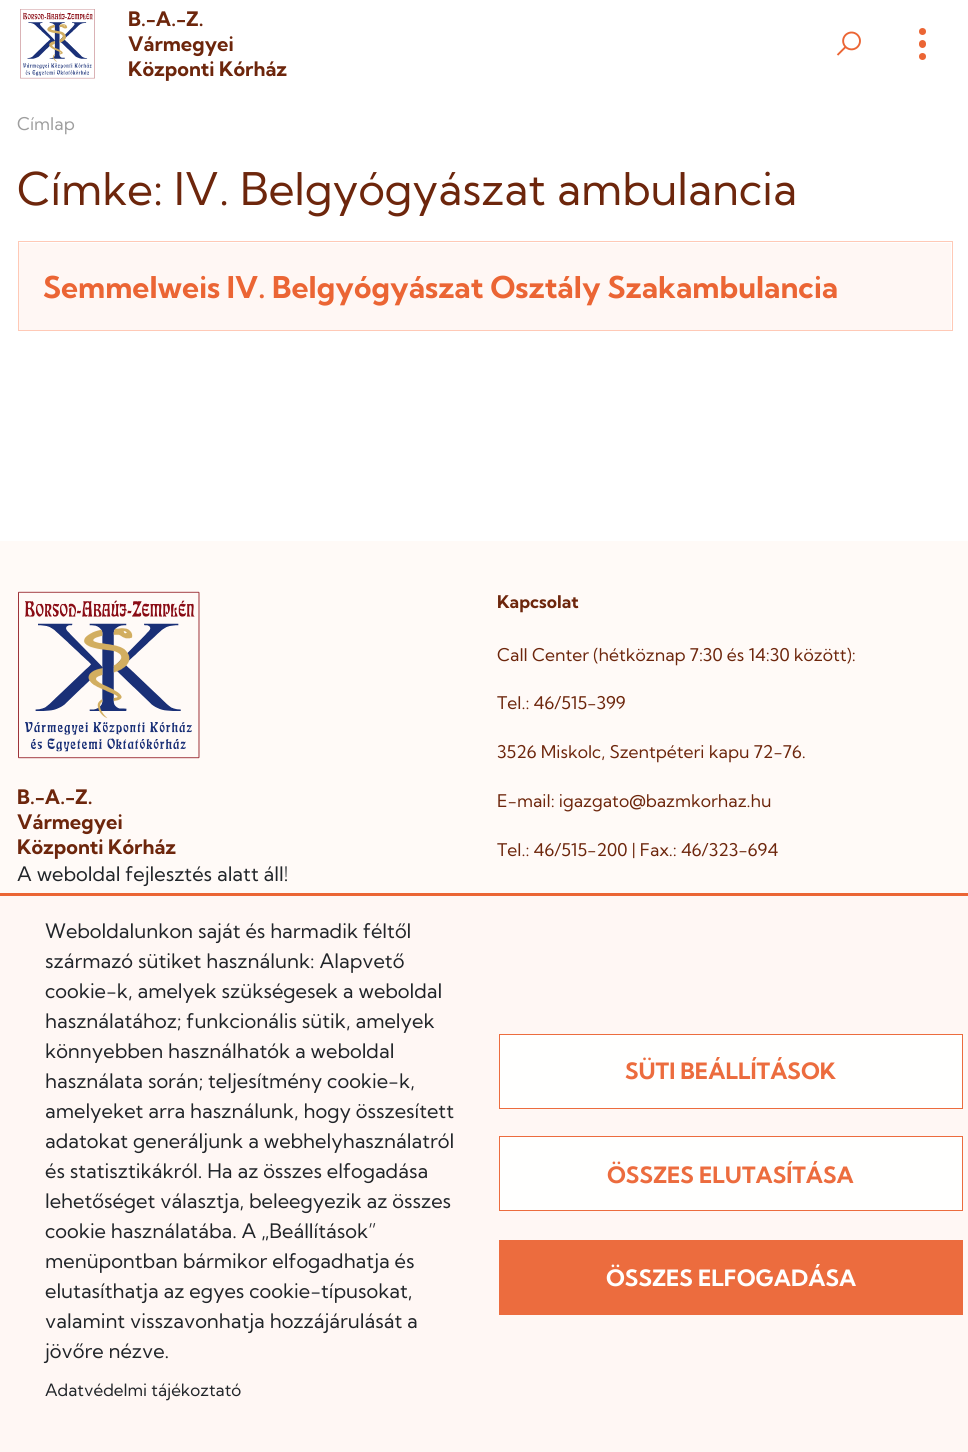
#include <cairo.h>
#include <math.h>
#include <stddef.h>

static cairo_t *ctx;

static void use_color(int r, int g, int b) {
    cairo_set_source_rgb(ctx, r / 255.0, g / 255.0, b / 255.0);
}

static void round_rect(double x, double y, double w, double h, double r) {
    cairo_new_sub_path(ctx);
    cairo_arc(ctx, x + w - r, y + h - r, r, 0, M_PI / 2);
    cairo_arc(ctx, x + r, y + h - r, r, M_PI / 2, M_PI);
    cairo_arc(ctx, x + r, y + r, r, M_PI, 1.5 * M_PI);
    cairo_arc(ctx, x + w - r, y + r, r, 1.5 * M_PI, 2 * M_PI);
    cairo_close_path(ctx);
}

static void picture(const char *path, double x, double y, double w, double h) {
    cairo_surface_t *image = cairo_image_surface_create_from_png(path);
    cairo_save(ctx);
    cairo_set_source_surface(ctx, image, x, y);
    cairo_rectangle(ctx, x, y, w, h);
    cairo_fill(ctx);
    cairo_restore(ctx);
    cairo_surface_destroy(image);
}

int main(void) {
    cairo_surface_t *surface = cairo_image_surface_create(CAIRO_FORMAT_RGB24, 968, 1452);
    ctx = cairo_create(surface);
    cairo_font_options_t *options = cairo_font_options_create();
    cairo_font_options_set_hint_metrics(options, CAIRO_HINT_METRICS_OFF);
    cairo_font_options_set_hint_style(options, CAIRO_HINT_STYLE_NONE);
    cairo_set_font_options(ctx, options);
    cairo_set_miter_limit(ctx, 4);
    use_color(255, 255, 255);
    cairo_paint(ctx);
    picture("img1.png", 20, 9, 75, 70);
    cairo_select_font_face(ctx, "Kumbh Sans", CAIRO_FONT_SLANT_NORMAL, CAIRO_FONT_WEIGHT_BOLD);
    cairo_set_font_size(ctx, 20);
    use_color(109, 38, 12);
    cairo_move_to(ctx, 128, 26);
    cairo_show_text(ctx, "B.-A.-Z.");
    cairo_move_to(ctx, 128, 51);
    cairo_show_text(ctx, "Vármegyei");
    cairo_move_to(ctx, 128, 76);
    cairo_show_text(ctx, "Központi Kórház");
    picture("img2.png", 836, 31, 25, 25);
    use_color(235, 101, 52);
    cairo_arc(ctx, 922.5, 31.5, 3.5, 0, 2 * M_PI);
    cairo_fill(ctx);
    round_rect(919, 40, 7, 8, 3.5);
    cairo_fill(ctx);
    cairo_arc(ctx, 922.5, 56.5, 3.5, 0, 2 * M_PI);
    cairo_fill(ctx);
    use_color(255, 247, 244);
    cairo_rectangle(ctx, 0, 896, 968, 556);
    cairo_fill(ctx);
    use_color(235, 101, 52);
    cairo_rectangle(ctx, 0, 893, 968, 3);
    cairo_fill(ctx);
    cairo_select_font_face(ctx, "Kumbh Sans", CAIRO_FONT_SLANT_NORMAL, CAIRO_FONT_WEIGHT_NORMAL);
    use_color(33, 37, 41);
    cairo_move_to(ctx, 45, 938);
    cairo_show_text(ctx, "Weboldalunkon saját és harmadik féltől");
    cairo_move_to(ctx, 45, 968);
    cairo_show_text(ctx, "származó sütiket használunk: Alapvető");
    cairo_move_to(ctx, 45, 998);
    cairo_show_text(ctx, "cookie-k, amelyek szükségesek a weboldal");
    cairo_move_to(ctx, 45, 1028);
    cairo_show_text(ctx, "használatához; funkcionális sütik, amelyek");
    cairo_move_to(ctx, 45, 1058);
    cairo_show_text(ctx, "könnyebben használhatók a weboldal");
    cairo_move_to(ctx, 45, 1088);
    cairo_show_text(ctx, "használata során; teljesítmény cookie-k,");
    cairo_move_to(ctx, 45, 1118);
    cairo_show_text(ctx, "amelyeket arra használunk, hogy összesített");
    cairo_move_to(ctx, 45, 1148);
    cairo_show_text(ctx, "adatokat generáljunk a webhelyhasználatról");
    cairo_move_to(ctx, 45, 1178);
    cairo_show_text(ctx, "és statisztikákról. Ha az összes elfogadása");
    cairo_move_to(ctx, 45, 1208);
    cairo_show_text(ctx, "lehetőséget választja, beleegyezik az összes");
    cairo_move_to(ctx, 45, 1238);
    cairo_show_text(ctx, "cookie használatába. A „Beállítások”");
    cairo_move_to(ctx, 45, 1268);
    cairo_show_text(ctx, "menüpontban bármikor elfogadhatja és");
    cairo_move_to(ctx, 45, 1298);
    cairo_show_text(ctx, "elutasíthatja az egyes cookie-típusokat,");
    cairo_move_to(ctx, 45, 1328);
    cairo_show_text(ctx, "valamint visszavonhatja hozzájárulását a");
    cairo_move_to(ctx, 45, 1358);
    cairo_show_text(ctx, "jövőre nézve.");
    cairo_set_font_size(ctx, 17);
    cairo_move_to(ctx, 45, 1396);
    cairo_show_text(ctx, "Adatvédelmi tájékoztató");
    use_color(255, 255, 254);
    cairo_rectangle(ctx, 499.5, 1034.5, 463, 74);
    cairo_fill_preserve(ctx);
    use_color(236, 108, 62);
    cairo_set_line_width(ctx, 1);
    cairo_stroke(ctx);
    cairo_select_font_face(ctx, "Kumbh Sans", CAIRO_FONT_SLANT_NORMAL, CAIRO_FONT_WEIGHT_BOLD);
    cairo_set_font_size(ctx, 22.5);
    cairo_move_to(ctx, 625, 1079);
    cairo_show_text(ctx, "SÜTI BEÁLLÍTÁSOK");
    use_color(255, 255, 254);
    cairo_rectangle(ctx, 499.5, 1136.5, 463, 74);
    cairo_fill_preserve(ctx);
    use_color(236, 108, 62);
    cairo_stroke(ctx);
    cairo_move_to(ctx, 607, 1183);
    cairo_show_text(ctx, "ÖSSZES ELUTASÍTÁSA");
    cairo_rectangle(ctx, 499, 1240, 464, 75);
    cairo_fill(ctx);
    use_color(255, 255, 254);
    cairo_move_to(ctx, 606, 1286);
    cairo_show_text(ctx, "ÖSSZES ELFOGADÁSA");
    cairo_select_font_face(ctx, "Kumbh Sans", CAIRO_FONT_SLANT_NORMAL, CAIRO_FONT_WEIGHT_NORMAL);
    cairo_set_font_size(ctx, 17.5);
    use_color(158, 158, 158);
    cairo_move_to(ctx, 17, 130);
    cairo_show_text(ctx, "Címlap");
    cairo_set_font_size(ctx, 45);
    use_color(109, 38, 12);
    cairo_move_to(ctx, 17, 205);
    cairo_show_text(ctx, "Címke: IV. Belgyógyászat ambulancia");
    cairo_rectangle(ctx, 18.5, 241.5, 934, 89);
    use_color(255, 201, 182);
    cairo_stroke(ctx);
    use_color(255, 247, 244);
    cairo_rectangle(ctx, 19, 243, 932, 87);
    cairo_fill(ctx);
    cairo_select_font_face(ctx, "Kumbh Sans", CAIRO_FONT_SLANT_NORMAL, CAIRO_FONT_WEIGHT_BOLD);
    cairo_set_font_size(ctx, 30);
    use_color(235, 101, 52);
    cairo_move_to(ctx, 43, 298);
    cairo_show_text(ctx, "Semmelweis IV. Belgyógyászat Osztály Szakambulancia");
    use_color(255, 250, 247);
    cairo_rectangle(ctx, 0, 541, 968, 352);
    cairo_fill(ctx);
    picture("img3.png", 18, 591, 182, 168);
    cairo_set_font_size(ctx, 20);
    use_color(109, 38, 12);
    cairo_move_to(ctx, 17, 804);
    cairo_show_text(ctx, "B.-A.-Z.");
    cairo_move_to(ctx, 17, 829);
    cairo_show_text(ctx, "Vármegyei");
    cairo_move_to(ctx, 17, 854);
    cairo_show_text(ctx, "Központi Kórház");
    cairo_select_font_face(ctx, "Kumbh Sans", CAIRO_FONT_SLANT_NORMAL, CAIRO_FONT_WEIGHT_NORMAL);
    use_color(33, 37, 41);
    cairo_move_to(ctx, 17, 881);
    cairo_show_text(ctx, "A weboldal fejlesztés alatt áll!");
    cairo_select_font_face(ctx, "Kumbh Sans", CAIRO_FONT_SLANT_NORMAL, CAIRO_FONT_WEIGHT_BOLD);
    cairo_set_font_size(ctx, 17.5);
    use_color(109, 38, 12);
    cairo_move_to(ctx, 497, 608);
    cairo_show_text(ctx, "Kapcsolat");
    cairo_select_font_face(ctx, "Kumbh Sans", CAIRO_FONT_SLANT_NORMAL, CAIRO_FONT_WEIGHT_NORMAL);
    cairo_move_to(ctx, 497, 661);
    cairo_show_text(ctx, "Call Center (hétköznap 7:30 és 14:30 között):");
    cairo_move_to(ctx, 497, 709);
    cairo_show_text(ctx, "Tel.: 46/515-399");
    cairo_move_to(ctx, 497, 758);
    cairo_show_text(ctx, "3526 Miskolc, Szentpéteri kapu 72-76.");
    cairo_move_to(ctx, 497, 807);
    cairo_show_text(ctx, "E-mail: igazgato@bazmkorhaz.hu");
    cairo_move_to(ctx, 497, 856);
    cairo_show_text(ctx, "Tel.: 46/515-200 | Fax.: 46/323-694");
    cairo_surface_write_to_png(surface, "result.png");
    cairo_font_options_destroy(options);
    cairo_destroy(ctx);
    cairo_surface_destroy(surface);
    return 0;
}
